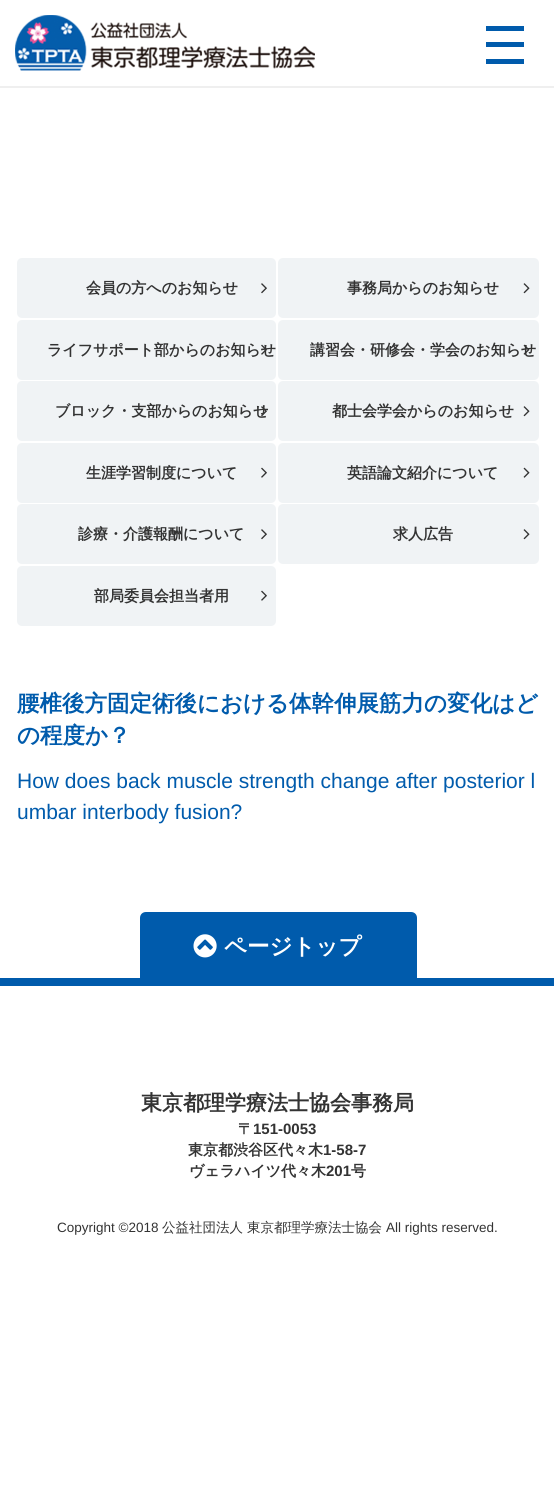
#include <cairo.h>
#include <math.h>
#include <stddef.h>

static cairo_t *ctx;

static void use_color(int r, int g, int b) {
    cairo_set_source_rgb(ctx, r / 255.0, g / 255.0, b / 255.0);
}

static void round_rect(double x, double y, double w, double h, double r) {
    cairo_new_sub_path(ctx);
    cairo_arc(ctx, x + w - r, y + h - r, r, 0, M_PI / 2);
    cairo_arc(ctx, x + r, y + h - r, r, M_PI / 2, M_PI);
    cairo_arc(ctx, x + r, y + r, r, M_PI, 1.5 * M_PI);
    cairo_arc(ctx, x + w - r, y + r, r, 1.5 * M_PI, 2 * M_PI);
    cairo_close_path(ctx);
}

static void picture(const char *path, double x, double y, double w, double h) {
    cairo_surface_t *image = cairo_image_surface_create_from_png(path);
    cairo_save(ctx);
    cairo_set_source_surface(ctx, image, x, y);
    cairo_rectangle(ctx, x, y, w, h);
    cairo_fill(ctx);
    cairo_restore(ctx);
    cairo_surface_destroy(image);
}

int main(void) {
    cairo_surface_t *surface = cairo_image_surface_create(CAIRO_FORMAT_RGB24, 554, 1495);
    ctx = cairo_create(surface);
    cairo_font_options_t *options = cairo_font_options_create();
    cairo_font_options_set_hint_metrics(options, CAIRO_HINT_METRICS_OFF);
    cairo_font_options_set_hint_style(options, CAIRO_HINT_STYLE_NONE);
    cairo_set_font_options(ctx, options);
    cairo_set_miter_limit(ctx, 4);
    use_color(255, 255, 255);
    cairo_paint(ctx);
    use_color(239, 239, 239);
    cairo_rectangle(ctx, 0, 86, 554, 2);
    cairo_fill(ctx);
    picture("img1.png", 15, 15, 300, 56);
    use_color(0, 91, 172);
    cairo_rectangle(ctx, 486, 26, 38, 5);
    cairo_fill(ctx);
    cairo_rectangle(ctx, 486, 42, 38, 5);
    cairo_fill(ctx);
    cairo_rectangle(ctx, 486, 59, 38, 5);
    cairo_fill(ctx);
    use_color(240, 243, 245);
    round_rect(17, 258, 259, 60, 5);
    cairo_fill(ctx);
    cairo_select_font_face(ctx, "WenQuanYi Zen Hei", CAIRO_FONT_SLANT_NORMAL, CAIRO_FONT_WEIGHT_BOLD);
    cairo_set_font_size(ctx, 15);
    use_color(51, 51, 51);
    cairo_move_to(ctx, 86, 293);
    cairo_show_text(ctx, "会員の方へのお知らせ");
    picture("img2.png", 261, 283, 6, 11);
    use_color(240, 243, 245);
    round_rect(278, 258, 261, 60, 5);
    cairo_fill(ctx);
    use_color(51, 51, 51);
    cairo_move_to(ctx, 347, 293);
    cairo_show_text(ctx, "事務局からのお知らせ");
    picture("img3.png", 523, 283, 7, 11);
    use_color(240, 243, 245);
    round_rect(17, 320, 259, 60, 5);
    cairo_fill(ctx);
    picture("img4.png", 261, 344, 6, 11);
    use_color(51, 51, 51);
    cairo_move_to(ctx, 47, 355);
    cairo_show_text(ctx, "ライフサポート部からのお知らせ");
    use_color(240, 243, 245);
    round_rect(278, 320, 261, 60, 5);
    cairo_fill(ctx);
    picture("img5.png", 523, 344, 7, 11);
    use_color(51, 51, 51);
    cairo_move_to(ctx, 310, 355);
    cairo_show_text(ctx, "講習会・研修会・学会のお知らせ");
    use_color(240, 243, 245);
    round_rect(17, 381, 259, 60, 5);
    cairo_fill(ctx);
    picture("img2.png", 261, 406, 6, 11);
    use_color(51, 51, 51);
    cairo_move_to(ctx, 55, 416);
    cairo_show_text(ctx, "ブロック・支部からのお知らせ");
    use_color(240, 243, 245);
    round_rect(278, 381, 261, 60, 5);
    cairo_fill(ctx);
    use_color(51, 51, 51);
    cairo_move_to(ctx, 332, 416);
    cairo_show_text(ctx, "都士会学会からのお知らせ");
    picture("img3.png", 523, 406, 7, 11);
    use_color(240, 243, 245);
    round_rect(17, 443, 259, 60, 5);
    cairo_fill(ctx);
    use_color(51, 51, 51);
    cairo_move_to(ctx, 86, 478);
    cairo_show_text(ctx, "生涯学習制度について");
    picture("img4.png", 261, 467, 6, 11);
    use_color(240, 243, 245);
    round_rect(278, 443, 261, 60, 5);
    cairo_fill(ctx);
    use_color(51, 51, 51);
    cairo_move_to(ctx, 347, 478);
    cairo_show_text(ctx, "英語論文紹介について");
    picture("img5.png", 523, 467, 7, 11);
    use_color(240, 243, 245);
    round_rect(17, 504, 259, 60, 5);
    cairo_fill(ctx);
    use_color(51, 51, 51);
    cairo_move_to(ctx, 78, 539);
    cairo_show_text(ctx, "診療・介護報酬について");
    picture("img2.png", 261, 529, 6, 11);
    use_color(240, 243, 245);
    round_rect(278, 504, 261, 60, 5);
    cairo_fill(ctx);
    use_color(51, 51, 51);
    cairo_move_to(ctx, 393, 539);
    cairo_show_text(ctx, "求人広告");
    picture("img3.png", 523, 529, 7, 11);
    use_color(240, 243, 245);
    round_rect(17, 566, 259, 60, 5);
    cairo_fill(ctx);
    use_color(51, 51, 51);
    cairo_move_to(ctx, 94, 601);
    cairo_show_text(ctx, "部局委員会担当者用");
    picture("img4.png", 261, 590, 6, 11);
    cairo_set_font_size(ctx, 22.5);
    use_color(0, 91, 172);
    cairo_move_to(ctx, 17, 711);
    cairo_show_text(ctx, "腰椎後方固定術後における体幹伸展筋力の変化はど");
    cairo_move_to(ctx, 17, 743);
    cairo_show_text(ctx, "の程度か？");
    cairo_select_font_face(ctx, "Liberation Sans", CAIRO_FONT_SLANT_NORMAL, CAIRO_FONT_WEIGHT_NORMAL);
    cairo_set_font_size(ctx, 21);
    cairo_move_to(ctx, 17, 788);
    cairo_show_text(ctx, "How does back muscle strength change after posterior l");
    cairo_move_to(ctx, 17, 819);
    cairo_show_text(ctx, "umbar interbody fusion?");
    cairo_rectangle(ctx, 0, 978, 554, 8);
    cairo_fill(ctx);
    cairo_new_path(ctx);
    cairo_move_to(ctx, 146, 912);
    cairo_line_to(ctx, 411, 912);
    cairo_curve_to(ctx, 414.5, 912, 417, 914.5, 417, 918);
    cairo_line_to(ctx, 417, 980);
    cairo_line_to(ctx, 140, 980);
    cairo_line_to(ctx, 140, 918);
    cairo_curve_to(ctx, 140, 914.5, 142.5, 912, 146, 912);
    cairo_close_path(ctx);
    cairo_fill(ctx);
    picture("img6.png", 193, 934, 24, 24);
    cairo_select_font_face(ctx, "WenQuanYi Zen Hei", CAIRO_FONT_SLANT_NORMAL, CAIRO_FONT_WEIGHT_BOLD);
    cairo_set_font_size(ctx, 22.5);
    use_color(255, 255, 255);
    cairo_move_to(ctx, 224, 954);
    cairo_show_text(ctx, "ページトップ");
    cairo_set_font_size(ctx, 21);
    use_color(51, 51, 51);
    cairo_move_to(ctx, 141, 1110);
    cairo_show_text(ctx, "東京都理学療法士協会事務局");
    cairo_set_font_size(ctx, 15);
    cairo_move_to(ctx, 238, 1134);
    cairo_show_text(ctx, "〒");
    cairo_select_font_face(ctx, "Liberation Sans", CAIRO_FONT_SLANT_NORMAL, CAIRO_FONT_WEIGHT_BOLD);
    cairo_move_to(ctx, 253, 1134);
    cairo_show_text(ctx, "151-0053");
    cairo_select_font_face(ctx, "WenQuanYi Zen Hei", CAIRO_FONT_SLANT_NORMAL, CAIRO_FONT_WEIGHT_BOLD);
    cairo_move_to(ctx, 188, 1155);
    cairo_show_text(ctx, "東京都渋谷区代々木");
    cairo_select_font_face(ctx, "Liberation Sans", CAIRO_FONT_SLANT_NORMAL, CAIRO_FONT_WEIGHT_BOLD);
    cairo_move_to(ctx, 323, 1155);
    cairo_show_text(ctx, "1-58-7");
    cairo_select_font_face(ctx, "WenQuanYi Zen Hei", CAIRO_FONT_SLANT_NORMAL, CAIRO_FONT_WEIGHT_BOLD);
    cairo_move_to(ctx, 189, 1176);
    cairo_show_text(ctx, "ヴェラハイツ代々木");
    cairo_select_font_face(ctx, "Liberation Sans", CAIRO_FONT_SLANT_NORMAL, CAIRO_FONT_WEIGHT_BOLD);
    cairo_move_to(ctx, 326, 1176);
    cairo_show_text(ctx, "201");
    cairo_select_font_face(ctx, "WenQuanYi Zen Hei", CAIRO_FONT_SLANT_NORMAL, CAIRO_FONT_WEIGHT_BOLD);
    cairo_move_to(ctx, 351, 1176);
    cairo_show_text(ctx, "号");
    cairo_select_font_face(ctx, "Liberation Sans", CAIRO_FONT_SLANT_NORMAL, CAIRO_FONT_WEIGHT_NORMAL);
    cairo_set_font_size(ctx, 13.5);
    cairo_move_to(ctx, 57, 1232);
    cairo_show_text(ctx, "Copyright ©2018");
    cairo_select_font_face(ctx, "WenQuanYi Zen Hei Medium", CAIRO_FONT_SLANT_NORMAL, CAIRO_FONT_WEIGHT_NORMAL);
    cairo_move_to(ctx, 162, 1232);
    cairo_show_text(ctx, "公益社団法人 東京都理学療法士協会");
    cairo_select_font_face(ctx, "Liberation Sans", CAIRO_FONT_SLANT_NORMAL, CAIRO_FONT_WEIGHT_NORMAL);
    cairo_move_to(ctx, 386, 1232);
    cairo_show_text(ctx, "All rights reserved.");
    cairo_surface_write_to_png(surface, "result.png");
    cairo_font_options_destroy(options);
    cairo_destroy(ctx);
    cairo_surface_destroy(surface);
    return 0;
}
